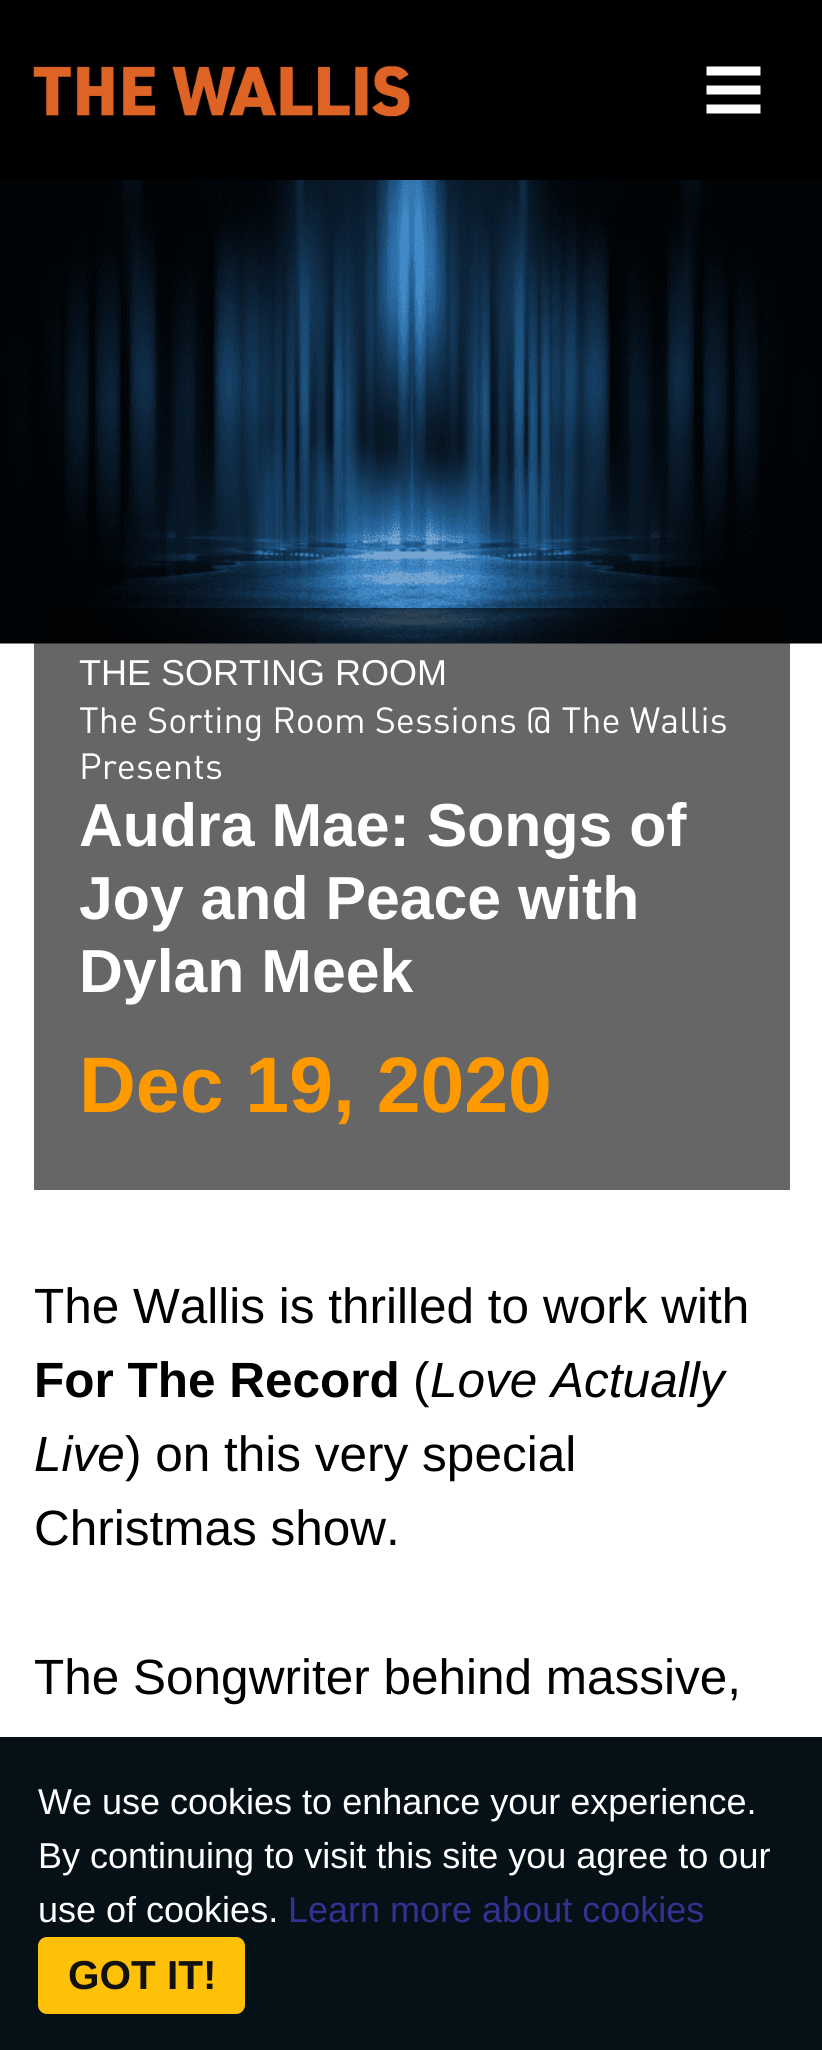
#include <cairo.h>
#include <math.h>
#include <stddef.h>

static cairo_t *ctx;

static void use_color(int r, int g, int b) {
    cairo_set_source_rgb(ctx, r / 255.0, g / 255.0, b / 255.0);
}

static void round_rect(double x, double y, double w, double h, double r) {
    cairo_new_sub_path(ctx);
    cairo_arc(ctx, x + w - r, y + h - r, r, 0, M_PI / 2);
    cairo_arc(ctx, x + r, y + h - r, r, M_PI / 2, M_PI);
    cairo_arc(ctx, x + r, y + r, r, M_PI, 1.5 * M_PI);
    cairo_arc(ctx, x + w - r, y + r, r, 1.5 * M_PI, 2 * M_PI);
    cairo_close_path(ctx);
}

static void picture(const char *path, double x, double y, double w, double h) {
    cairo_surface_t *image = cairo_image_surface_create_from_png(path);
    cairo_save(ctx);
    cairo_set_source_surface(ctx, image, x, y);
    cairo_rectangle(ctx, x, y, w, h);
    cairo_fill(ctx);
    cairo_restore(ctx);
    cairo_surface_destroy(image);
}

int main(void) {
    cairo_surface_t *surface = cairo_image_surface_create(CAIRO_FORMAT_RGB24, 822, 2050);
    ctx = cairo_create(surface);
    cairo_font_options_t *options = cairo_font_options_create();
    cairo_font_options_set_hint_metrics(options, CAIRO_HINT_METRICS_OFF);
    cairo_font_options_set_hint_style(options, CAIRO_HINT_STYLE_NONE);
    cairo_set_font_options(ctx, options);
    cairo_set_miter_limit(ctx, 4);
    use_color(255, 255, 255);
    cairo_paint(ctx);
    use_color(0, 0, 0);
    cairo_rectangle(ctx, 0, 0, 822, 180);
    cairo_fill(ctx);
    picture("img1.png", 33, 65, 377, 52);
    cairo_new_path(ctx);
    cairo_move_to(ctx, 711, 71);
    cairo_line_to(ctx, 756, 71);
    cairo_move_to(ctx, 711, 90);
    cairo_line_to(ctx, 756, 90);
    cairo_move_to(ctx, 756, 109);
    cairo_line_to(ctx, 711, 109);
    use_color(255, 255, 255);
    cairo_set_line_width(ctx, 9);
    cairo_set_line_cap(ctx, CAIRO_LINE_CAP_SQUARE);
    cairo_stroke(ctx);
    picture("img2.png", 0, 180, 822, 464);
    cairo_set_source_rgba(ctx, 0, 0, 0, 0.6);
    cairo_rectangle(ctx, 34, 608, 756, 582);
    cairo_fill(ctx);
    cairo_select_font_face(ctx, "Liberation Sans", CAIRO_FONT_SLANT_NORMAL, CAIRO_FONT_WEIGHT_NORMAL);
    cairo_set_font_size(ctx, 36);
    use_color(255, 255, 255);
    cairo_move_to(ctx, 79, 685);
    cairo_show_text(ctx, "THE SORTING ROOM");
    cairo_select_font_face(ctx, "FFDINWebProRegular", CAIRO_FONT_SLANT_NORMAL, CAIRO_FONT_WEIGHT_NORMAL);
    cairo_move_to(ctx, 79, 733);
    cairo_show_text(ctx, "The Sorting Room Sessions @ The Wallis");
    cairo_move_to(ctx, 79, 779);
    cairo_show_text(ctx, "Presents");
    cairo_select_font_face(ctx, "Liberation Sans", CAIRO_FONT_SLANT_NORMAL, CAIRO_FONT_WEIGHT_BOLD);
    cairo_set_font_size(ctx, 60.75);
    cairo_move_to(ctx, 79, 846);
    cairo_show_text(ctx, "Audra Mae: Songs of");
    cairo_move_to(ctx, 79, 919);
    cairo_show_text(ctx, "Joy and Peace with");
    cairo_move_to(ctx, 79, 992);
    cairo_show_text(ctx, "Dylan Meek");
    cairo_set_font_size(ctx, 78.75);
    use_color(255, 153, 0);
    cairo_move_to(ctx, 79, 1112);
    cairo_show_text(ctx, "Dec 19, 2020");
    cairo_select_font_face(ctx, "Liberation Sans", CAIRO_FONT_SLANT_NORMAL, CAIRO_FONT_WEIGHT_NORMAL);
    cairo_set_font_size(ctx, 49.5);
    use_color(0, 0, 0);
    cairo_move_to(ctx, 34, 1323);
    cairo_show_text(ctx, "The Wallis is thrilled to work with");
    cairo_select_font_face(ctx, "Liberation Sans", CAIRO_FONT_SLANT_NORMAL, CAIRO_FONT_WEIGHT_BOLD);
    cairo_move_to(ctx, 34, 1397);
    cairo_show_text(ctx, "For The Record");
    cairo_select_font_face(ctx, "Liberation Sans", CAIRO_FONT_SLANT_NORMAL, CAIRO_FONT_WEIGHT_NORMAL);
    cairo_move_to(ctx, 413, 1397);
    cairo_show_text(ctx, "(");
    cairo_select_font_face(ctx, "Liberation Sans", CAIRO_FONT_SLANT_ITALIC, CAIRO_FONT_WEIGHT_NORMAL);
    cairo_move_to(ctx, 430, 1397);
    cairo_show_text(ctx, "Love Actually");
    cairo_move_to(ctx, 34, 1471);
    cairo_show_text(ctx, "Live");
    cairo_select_font_face(ctx, "Liberation Sans", CAIRO_FONT_SLANT_NORMAL, CAIRO_FONT_WEIGHT_NORMAL);
    cairo_move_to(ctx, 125, 1471);
    cairo_show_text(ctx, ") on this very special");
    cairo_move_to(ctx, 34, 1545);
    cairo_show_text(ctx, "Christmas show.");
    cairo_move_to(ctx, 34, 1694);
    cairo_show_text(ctx, "The Songwriter behind massive,");
    use_color(6, 17, 23);
    cairo_rectangle(ctx, 0, 1737, 822, 313);
    cairo_fill(ctx);
    cairo_set_font_size(ctx, 36);
    use_color(255, 255, 255);
    cairo_move_to(ctx, 38, 1814);
    cairo_show_text(ctx, "We use cookies to enhance your experience.");
    cairo_move_to(ctx, 38, 1868);
    cairo_show_text(ctx, "By continuing to visit this site you agree to our");
    cairo_move_to(ctx, 38, 1922);
    cairo_show_text(ctx, "use of cookies.");
    use_color(54, 48, 146);
    cairo_move_to(ctx, 288, 1922);
    cairo_show_text(ctx, "Learn more about cookies");
    use_color(255, 193, 7);
    round_rect(39, 1938, 205, 75, 8);
    cairo_fill_preserve(ctx);
    cairo_set_line_width(ctx, 2);
    cairo_set_line_cap(ctx, CAIRO_LINE_CAP_BUTT);
    cairo_stroke(ctx);
    cairo_select_font_face(ctx, "Liberation Sans", CAIRO_FONT_SLANT_NORMAL, CAIRO_FONT_WEIGHT_BOLD);
    cairo_set_font_size(ctx, 40.5);
    use_color(17, 17, 17);
    cairo_move_to(ctx, 68, 1989);
    cairo_show_text(ctx, "GOT IT!");
    cairo_surface_write_to_png(surface, "result.png");
    cairo_font_options_destroy(options);
    cairo_destroy(ctx);
    cairo_surface_destroy(surface);
    return 0;
}
